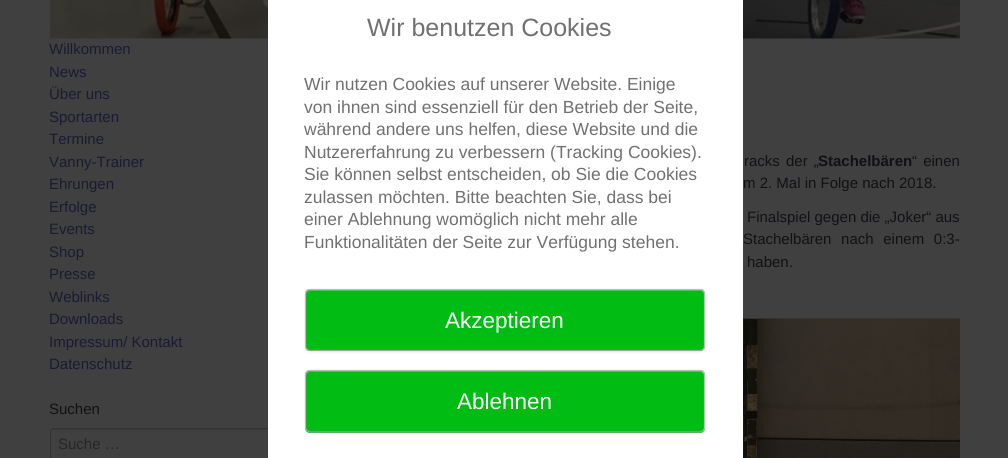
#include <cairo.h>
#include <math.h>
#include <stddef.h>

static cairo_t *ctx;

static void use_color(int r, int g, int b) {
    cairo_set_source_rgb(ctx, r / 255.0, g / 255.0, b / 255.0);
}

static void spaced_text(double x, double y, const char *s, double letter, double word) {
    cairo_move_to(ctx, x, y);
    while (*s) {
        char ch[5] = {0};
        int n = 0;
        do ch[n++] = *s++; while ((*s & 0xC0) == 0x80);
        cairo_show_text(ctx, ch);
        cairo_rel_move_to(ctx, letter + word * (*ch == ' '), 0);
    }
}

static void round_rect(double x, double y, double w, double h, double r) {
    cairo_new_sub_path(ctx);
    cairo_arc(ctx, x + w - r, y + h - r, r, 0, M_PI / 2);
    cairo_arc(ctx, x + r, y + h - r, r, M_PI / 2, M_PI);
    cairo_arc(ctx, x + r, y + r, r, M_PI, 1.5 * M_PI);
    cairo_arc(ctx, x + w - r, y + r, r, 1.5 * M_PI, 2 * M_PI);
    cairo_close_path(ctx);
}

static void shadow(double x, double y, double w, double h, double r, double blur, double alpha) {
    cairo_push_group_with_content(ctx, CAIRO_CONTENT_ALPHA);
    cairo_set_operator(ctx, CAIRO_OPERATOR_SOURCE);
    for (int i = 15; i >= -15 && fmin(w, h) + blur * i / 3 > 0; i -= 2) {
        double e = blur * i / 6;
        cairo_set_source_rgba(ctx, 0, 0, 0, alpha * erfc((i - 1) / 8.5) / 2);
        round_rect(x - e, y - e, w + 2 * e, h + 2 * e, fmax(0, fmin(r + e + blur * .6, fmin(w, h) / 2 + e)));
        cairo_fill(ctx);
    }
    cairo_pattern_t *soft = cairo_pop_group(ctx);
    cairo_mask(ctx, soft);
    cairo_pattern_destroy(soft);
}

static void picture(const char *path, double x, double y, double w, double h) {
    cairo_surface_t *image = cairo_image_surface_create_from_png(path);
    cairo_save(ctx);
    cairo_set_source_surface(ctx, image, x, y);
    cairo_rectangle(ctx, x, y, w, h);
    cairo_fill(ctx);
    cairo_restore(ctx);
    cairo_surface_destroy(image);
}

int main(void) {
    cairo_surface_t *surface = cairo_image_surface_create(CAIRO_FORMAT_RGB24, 1008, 458);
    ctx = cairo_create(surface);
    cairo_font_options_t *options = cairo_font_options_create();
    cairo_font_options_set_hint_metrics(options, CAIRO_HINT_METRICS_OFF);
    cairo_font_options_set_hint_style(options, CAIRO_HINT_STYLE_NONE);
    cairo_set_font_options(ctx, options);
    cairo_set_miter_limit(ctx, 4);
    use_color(64, 64, 64);
    cairo_paint(ctx);
    picture("img1.png", 50, 0, 910, 39);
    use_color(59, 59, 59);
    cairo_new_path(ctx);
    cairo_move_to(ctx, 54, 430);
    cairo_line_to(ctx, 321, 430);
    cairo_curve_to(ctx, 323, 430, 324, 431, 324, 432);
    cairo_curve_to(ctx, 324, 430, 323, 429, 322, 429);
    cairo_line_to(ctx, 54, 429);
    cairo_curve_to(ctx, 52, 429, 51, 430, 51, 432);
    cairo_curve_to(ctx, 51, 431, 52, 430, 54, 430);
    cairo_close_path(ctx);
    cairo_fill(ctx);
    round_rect(50.5, 428.5, 274, 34, 3.5);
    use_color(51, 51, 51);
    cairo_set_line_width(ctx, 1);
    cairo_stroke(ctx);
    use_color(255, 255, 255);
    cairo_rectangle(ctx, 268, 0, 475, 458);
    cairo_fill(ctx);
    cairo_select_font_face(ctx, "Liberation Sans", CAIRO_FONT_SLANT_NORMAL, CAIRO_FONT_WEIGHT_NORMAL);
    cairo_set_font_size(ctx, 25);
    use_color(112, 112, 112);
    cairo_move_to(ctx, 367, 36);
    cairo_show_text(ctx, "Wir benutzen Cookies");
    cairo_set_font_size(ctx, 17.5);
    cairo_move_to(ctx, 304, 90);
    cairo_show_text(ctx, "Wir nutzen Cookies auf unserer Website. Einige");
    cairo_move_to(ctx, 304, 113);
    cairo_show_text(ctx, "von ihnen sind essenziell für den Betrieb der Seite,");
    cairo_move_to(ctx, 304, 135);
    cairo_show_text(ctx, "während andere uns helfen, diese Website und die");
    cairo_move_to(ctx, 304, 158);
    cairo_show_text(ctx, "Nutzererfahrung zu verbessern (Tracking Cookies).");
    cairo_move_to(ctx, 304, 180);
    cairo_show_text(ctx, "Sie können selbst entscheiden, ob Sie die Cookies");
    cairo_move_to(ctx, 304, 203);
    cairo_show_text(ctx, "zulassen möchten. Bitte beachten Sie, dass bei");
    cairo_move_to(ctx, 304, 225);
    cairo_show_text(ctx, "einer Ablehnung womöglich nicht mehr alle");
    cairo_move_to(ctx, 304, 248);
    cairo_show_text(ctx, "Funktionalitäten der Seite zur Verfügung stehen.");
    use_color(0, 0, 0);
    shadow(305, 290, 400, 63, 5, 1, 0.05);
    use_color(0, 188, 19);
    round_rect(305, 289, 400, 62, 5);
    cairo_fill(ctx);
    use_color(51, 201, 66);
    cairo_new_path(ctx);
    cairo_move_to(ctx, 310, 291);
    cairo_line_to(ctx, 700, 291);
    cairo_curve_to(ctx, 702, 291, 704, 293, 704, 295);
    cairo_curve_to(ctx, 704, 292, 703, 290, 700, 290);
    cairo_line_to(ctx, 310, 290);
    cairo_curve_to(ctx, 307, 290, 306, 292, 306, 295);
    cairo_curve_to(ctx, 306, 293, 308, 291, 310, 291);
    cairo_close_path(ctx);
    cairo_fill(ctx);
    cairo_new_path(ctx);
    cairo_move_to(ctx, 703, 349.5);
    cairo_line_to(ctx, 700, 350.5);
    cairo_line_to(ctx, 310, 350.5);
    cairo_line_to(ctx, 307, 349.5);
    use_color(162, 162, 162);
    cairo_set_line_width(ctx, 1.2);
    cairo_stroke(ctx);
    cairo_new_path(ctx);
    cairo_move_to(ctx, 307, 349.5);
    cairo_curve_to(ctx, 306, 348.5, 305.5, 347.5, 305.5, 346);
    cairo_line_to(ctx, 305.5, 294);
    cairo_curve_to(ctx, 305.5, 292.5, 306, 291.5, 307, 290.5);
    cairo_curve_to(ctx, 307.5, 290, 309, 289.5, 310, 289.5);
    cairo_line_to(ctx, 700, 289.5);
    cairo_curve_to(ctx, 701, 289.5, 702.5, 290, 703, 290.5);
    cairo_curve_to(ctx, 704, 291.5, 704.5, 292.5, 704.5, 294);
    cairo_line_to(ctx, 704.5, 346);
    cairo_curve_to(ctx, 704.5, 347.5, 704, 348.5, 703, 349.5);
    use_color(187, 187, 187);
    cairo_stroke(ctx);
    cairo_set_font_size(ctx, 22.5);
    use_color(255, 255, 255);
    cairo_move_to(ctx, 445, 328);
    cairo_show_text(ctx, "Akzeptieren");
    use_color(0, 0, 0);
    shadow(305, 371, 400, 63, 5, 1, 0.05);
    use_color(0, 188, 19);
    round_rect(305, 370, 400, 63, 5);
    cairo_fill(ctx);
    use_color(51, 201, 66);
    cairo_new_path(ctx);
    cairo_move_to(ctx, 310, 372);
    cairo_line_to(ctx, 700, 372);
    cairo_curve_to(ctx, 702, 372, 704, 374, 704, 376);
    cairo_curve_to(ctx, 704, 373, 703, 371, 700, 371);
    cairo_line_to(ctx, 310, 371);
    cairo_curve_to(ctx, 307, 371, 306, 373, 306, 376);
    cairo_curve_to(ctx, 306, 374, 308, 372, 310, 372);
    cairo_close_path(ctx);
    cairo_fill(ctx);
    cairo_new_path(ctx);
    cairo_move_to(ctx, 703, 430.5);
    cairo_line_to(ctx, 700, 432);
    cairo_line_to(ctx, 310, 432);
    cairo_line_to(ctx, 307, 430.5);
    use_color(162, 162, 162);
    cairo_stroke(ctx);
    cairo_new_path(ctx);
    cairo_move_to(ctx, 307, 430.5);
    cairo_curve_to(ctx, 306, 430, 305.5, 428.5, 305.5, 427.5);
    cairo_line_to(ctx, 305.5, 375);
    cairo_curve_to(ctx, 305.5, 374, 306, 372.5, 307, 372);
    cairo_curve_to(ctx, 307.5, 371, 309, 370.5, 310, 370.5);
    cairo_line_to(ctx, 700, 370.5);
    cairo_curve_to(ctx, 701, 370.5, 702.5, 371, 703, 372);
    cairo_curve_to(ctx, 704, 372.5, 704.5, 374, 704.5, 375);
    cairo_line_to(ctx, 704.5, 427.5);
    cairo_curve_to(ctx, 704.5, 428.5, 704, 430, 703, 430.5);
    use_color(187, 187, 187);
    cairo_stroke(ctx);
    use_color(255, 255, 255);
    cairo_move_to(ctx, 457, 409);
    cairo_show_text(ctx, "Ablehnen");
    cairo_set_font_size(ctx, 15);
    use_color(26, 26, 51);
    cairo_move_to(ctx, 49, 54);
    cairo_show_text(ctx, "Willkommen");
    cairo_move_to(ctx, 49, 77);
    cairo_show_text(ctx, "News");
    cairo_move_to(ctx, 49, 99);
    cairo_show_text(ctx, "Über uns");
    cairo_move_to(ctx, 49, 122);
    cairo_show_text(ctx, "Sportarten");
    cairo_move_to(ctx, 49, 144);
    cairo_show_text(ctx, "Termine");
    cairo_move_to(ctx, 49, 167);
    cairo_show_text(ctx, "Vanny-Trainer");
    cairo_move_to(ctx, 49, 189);
    cairo_show_text(ctx, "Ehrungen");
    cairo_move_to(ctx, 49, 212);
    cairo_show_text(ctx, "Erfolge");
    cairo_move_to(ctx, 49, 234);
    cairo_show_text(ctx, "Events");
    cairo_move_to(ctx, 49, 257);
    cairo_show_text(ctx, "Shop");
    cairo_move_to(ctx, 49, 279);
    cairo_show_text(ctx, "Presse");
    cairo_move_to(ctx, 49, 302);
    cairo_show_text(ctx, "Weblinks");
    cairo_move_to(ctx, 49, 324);
    cairo_show_text(ctx, "Downloads");
    cairo_move_to(ctx, 49, 347);
    cairo_show_text(ctx, "Impressum/ Kontakt");
    cairo_move_to(ctx, 49, 369);
    cairo_show_text(ctx, "Datenschutz");
    use_color(17, 17, 21);
    cairo_move_to(ctx, 49, 414);
    cairo_show_text(ctx, "Suchen");
    use_color(38, 38, 38);
    cairo_move_to(ctx, 58, 449);
    cairo_show_text(ctx, "Suche …");
    use_color(17, 17, 21);
    spaced_text(744, 166, "racks der „", 0, 2);
    cairo_select_font_face(ctx, "Liberation Sans", CAIRO_FONT_SLANT_NORMAL, CAIRO_FONT_WEIGHT_BOLD);
    cairo_move_to(ctx, 818, 166);
    cairo_show_text(ctx, "Stachelbären");
    cairo_select_font_face(ctx, "Liberation Sans", CAIRO_FONT_SLANT_NORMAL, CAIRO_FONT_WEIGHT_NORMAL);
    spaced_text(912, 166, "“ einen", 0, 2);
    cairo_move_to(ctx, 743, 188);
    cairo_show_text(ctx, "m 2. Mal in Folge nach 2018.");
    cairo_move_to(ctx, 747, 222);
    cairo_show_text(ctx, "Finalspiel gegen die „Joker“ aus");
    spaced_text(743, 244, "Stachelbären nach einem 0:3-", 0, 5.5);
    cairo_move_to(ctx, 747, 267);
    cairo_show_text(ctx, "haben.");
    picture("img2.png", 743, 318, 217, 140);
    cairo_surface_write_to_png(surface, "result.png");
    cairo_font_options_destroy(options);
    cairo_destroy(ctx);
    cairo_surface_destroy(surface);
    return 0;
}
